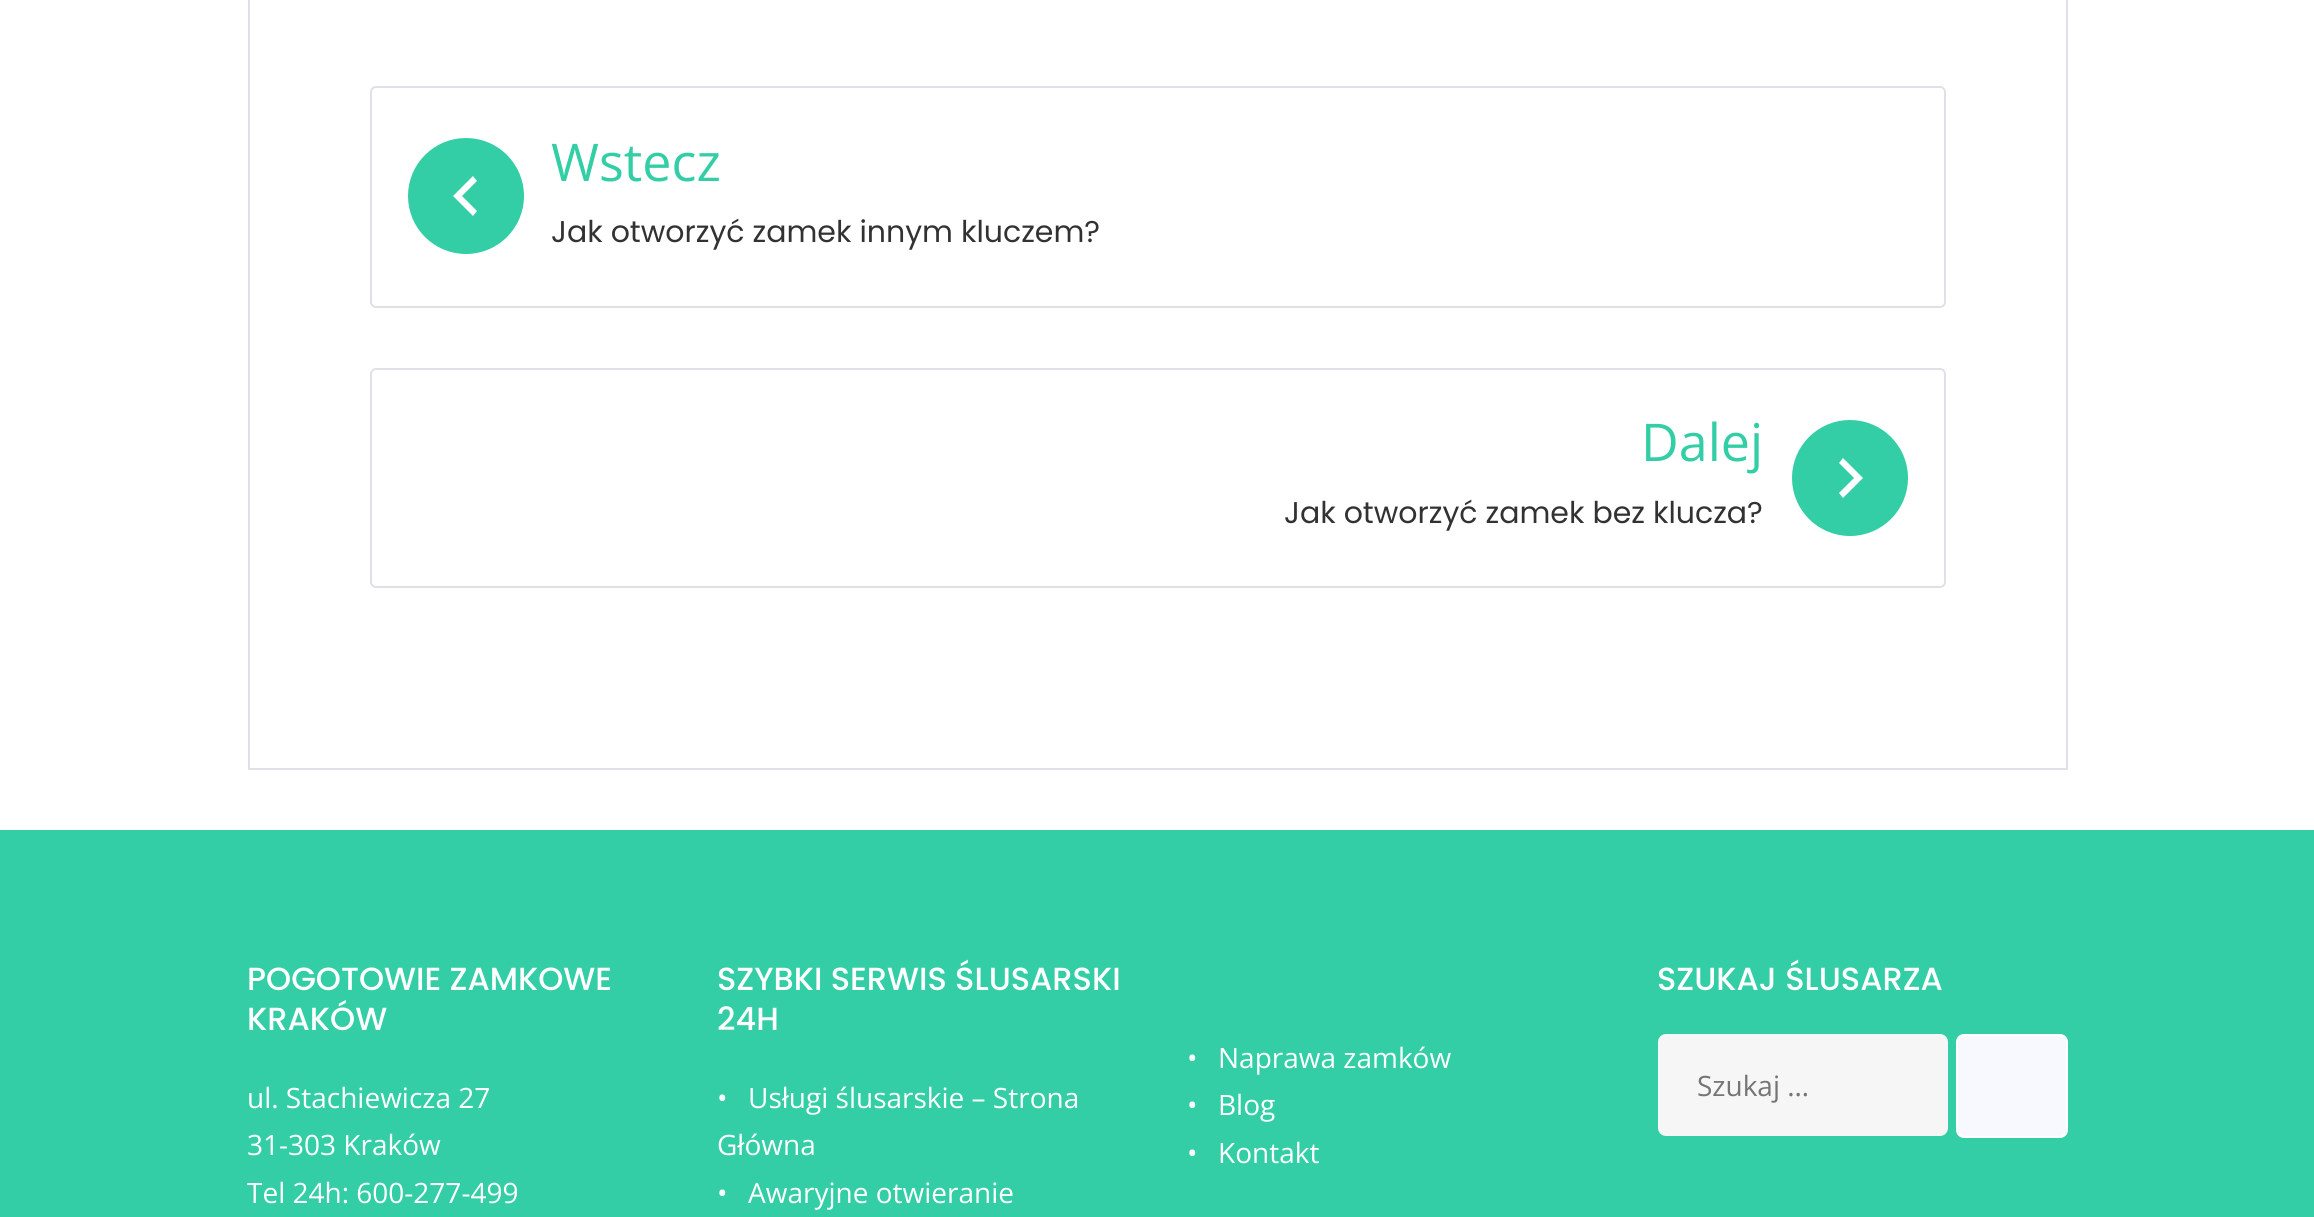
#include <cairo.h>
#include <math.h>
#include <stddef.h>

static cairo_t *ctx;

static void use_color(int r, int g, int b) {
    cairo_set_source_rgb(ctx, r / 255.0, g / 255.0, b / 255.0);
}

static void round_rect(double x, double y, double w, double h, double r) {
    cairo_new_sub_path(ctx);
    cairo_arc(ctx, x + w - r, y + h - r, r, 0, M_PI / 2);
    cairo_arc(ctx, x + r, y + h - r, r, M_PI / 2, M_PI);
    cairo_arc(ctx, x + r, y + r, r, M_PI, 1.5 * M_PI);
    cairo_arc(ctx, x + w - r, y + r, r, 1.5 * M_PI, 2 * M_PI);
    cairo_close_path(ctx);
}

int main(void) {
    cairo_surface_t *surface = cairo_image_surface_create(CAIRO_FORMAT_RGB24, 2314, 1217);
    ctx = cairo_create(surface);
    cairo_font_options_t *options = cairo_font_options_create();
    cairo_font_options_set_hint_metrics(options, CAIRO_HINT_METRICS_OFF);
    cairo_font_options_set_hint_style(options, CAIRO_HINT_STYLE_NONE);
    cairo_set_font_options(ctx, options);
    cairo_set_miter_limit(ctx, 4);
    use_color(255, 255, 255);
    cairo_paint(ctx);
    cairo_rectangle(ctx, 249, -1, 1818, 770);
    use_color(224, 224, 232);
    cairo_stroke(ctx);
    round_rect(371, 87, 1574, 220, 5);
    cairo_stroke(ctx);
    use_color(51, 206, 166);
    cairo_arc(ctx, 466, 196, 58, 0, 2 * M_PI);
    cairo_fill(ctx);
    use_color(255, 255, 255);
    cairo_new_path(ctx);
    cairo_move_to(ctx, 477, 181);
    cairo_line_to(ctx, 462, 196);
    cairo_line_to(ctx, 477, 211);
    cairo_line_to(ctx, 473, 216);
    cairo_line_to(ctx, 453, 196);
    cairo_line_to(ctx, 473, 176);
    cairo_close_path(ctx);
    cairo_fill(ctx);
    cairo_select_font_face(ctx, "Open Sans", CAIRO_FONT_SLANT_NORMAL, CAIRO_FONT_WEIGHT_NORMAL);
    cairo_set_font_size(ctx, 52);
    use_color(51, 206, 166);
    cairo_move_to(ctx, 551, 181);
    cairo_show_text(ctx, "Wstecz");
    cairo_select_font_face(ctx, "Poppins", CAIRO_FONT_SLANT_NORMAL, CAIRO_FONT_WEIGHT_NORMAL);
    cairo_set_font_size(ctx, 30);
    use_color(50, 50, 50);
    cairo_move_to(ctx, 551, 242);
    cairo_show_text(ctx, "Jak otworzyć zamek innym kluczem?");
    round_rect(371, 369, 1574, 218, 5);
    use_color(224, 224, 232);
    cairo_stroke(ctx);
    cairo_select_font_face(ctx, "Open Sans", CAIRO_FONT_SLANT_NORMAL, CAIRO_FONT_WEIGHT_NORMAL);
    cairo_set_font_size(ctx, 52);
    use_color(51, 206, 166);
    cairo_move_to(ctx, 1641, 461);
    cairo_show_text(ctx, "Dalej");
    cairo_new_path(ctx);
    cairo_arc(ctx, 1850, 478, 58, 0, 2 * M_PI);
    cairo_fill(ctx);
    use_color(255, 255, 255);
    cairo_new_path(ctx);
    cairo_move_to(ctx, 1843, 458);
    cairo_line_to(ctx, 1863, 478);
    cairo_line_to(ctx, 1843, 498);
    cairo_line_to(ctx, 1839, 493);
    cairo_line_to(ctx, 1854, 478);
    cairo_line_to(ctx, 1839, 463);
    cairo_close_path(ctx);
    cairo_fill(ctx);
    cairo_select_font_face(ctx, "Poppins", CAIRO_FONT_SLANT_NORMAL, CAIRO_FONT_WEIGHT_NORMAL);
    cairo_set_font_size(ctx, 30);
    use_color(50, 50, 50);
    cairo_move_to(ctx, 1284, 523);
    cairo_show_text(ctx, "Jak otworzyć zamek bez klucza?");
    use_color(51, 206, 166);
    cairo_rectangle(ctx, 0, 830, 2314, 387);
    cairo_fill(ctx);
    cairo_select_font_face(ctx, "Poppins Medium", CAIRO_FONT_SLANT_NORMAL, CAIRO_FONT_WEIGHT_NORMAL);
    cairo_set_font_size(ctx, 32);
    use_color(255, 255, 255);
    cairo_move_to(ctx, 247, 990);
    cairo_show_text(ctx, "POGOTOWIE ZAMKOWE");
    cairo_move_to(ctx, 247, 1030);
    cairo_show_text(ctx, "KRAKÓW");
    cairo_select_font_face(ctx, "Open Sans", CAIRO_FONT_SLANT_NORMAL, CAIRO_FONT_WEIGHT_NORMAL);
    cairo_set_font_size(ctx, 28);
    cairo_move_to(ctx, 247, 1108);
    cairo_show_text(ctx, "ul. Stachiewicza 27");
    cairo_move_to(ctx, 247, 1155);
    cairo_show_text(ctx, "31-303 Kraków");
    cairo_move_to(ctx, 247, 1203);
    cairo_show_text(ctx, "Tel 24h: 600-277-499");
    cairo_select_font_face(ctx, "Poppins Medium", CAIRO_FONT_SLANT_NORMAL, CAIRO_FONT_WEIGHT_NORMAL);
    cairo_set_font_size(ctx, 32);
    cairo_move_to(ctx, 717, 990);
    cairo_show_text(ctx, "SZYBKI SERWIS ŚLUSARSKI");
    cairo_move_to(ctx, 717, 1030);
    cairo_show_text(ctx, "24H");
    cairo_select_font_face(ctx, "Open Sans", CAIRO_FONT_SLANT_NORMAL, CAIRO_FONT_WEIGHT_NORMAL);
    cairo_set_font_size(ctx, 28);
    cairo_move_to(ctx, 717, 1108);
    cairo_show_text(ctx, "•");
    cairo_move_to(ctx, 748, 1108);
    cairo_show_text(ctx, "Usługi ślusarskie – Strona");
    cairo_move_to(ctx, 717, 1155);
    cairo_show_text(ctx, "Główna");
    cairo_move_to(ctx, 717, 1203);
    cairo_show_text(ctx, "•");
    cairo_move_to(ctx, 748, 1203);
    cairo_show_text(ctx, "Awaryjne otwieranie");
    cairo_move_to(ctx, 1187, 1068);
    cairo_show_text(ctx, "•");
    cairo_move_to(ctx, 1218, 1068);
    cairo_show_text(ctx, "Naprawa zamków");
    cairo_move_to(ctx, 1187, 1115);
    cairo_show_text(ctx, "•");
    cairo_move_to(ctx, 1218, 1115);
    cairo_show_text(ctx, "Blog");
    cairo_move_to(ctx, 1187, 1163);
    cairo_show_text(ctx, "•");
    cairo_move_to(ctx, 1218, 1163);
    cairo_show_text(ctx, "Kontakt");
    cairo_select_font_face(ctx, "Poppins Medium", CAIRO_FONT_SLANT_NORMAL, CAIRO_FONT_WEIGHT_NORMAL);
    cairo_set_font_size(ctx, 32);
    cairo_move_to(ctx, 1657, 990);
    cairo_show_text(ctx, "SZUKAJ ŚLUSARZA");
    use_color(246, 246, 246);
    round_rect(1658, 1034, 290, 102, 8);
    cairo_fill(ctx);
    cairo_select_font_face(ctx, "Open Sans", CAIRO_FONT_SLANT_NORMAL, CAIRO_FONT_WEIGHT_NORMAL);
    cairo_set_font_size(ctx, 28);
    use_color(117, 117, 117);
    cairo_move_to(ctx, 1697, 1096);
    cairo_show_text(ctx, "Szukaj …");
    use_color(248, 248, 255);
    round_rect(1957, 1035, 110, 102, 7);
    cairo_fill_preserve(ctx);
    use_color(255, 255, 255);
    cairo_stroke(ctx);
    cairo_surface_write_to_png(surface, "result.png");
    cairo_font_options_destroy(options);
    cairo_destroy(ctx);
    cairo_surface_destroy(surface);
    return 0;
}
